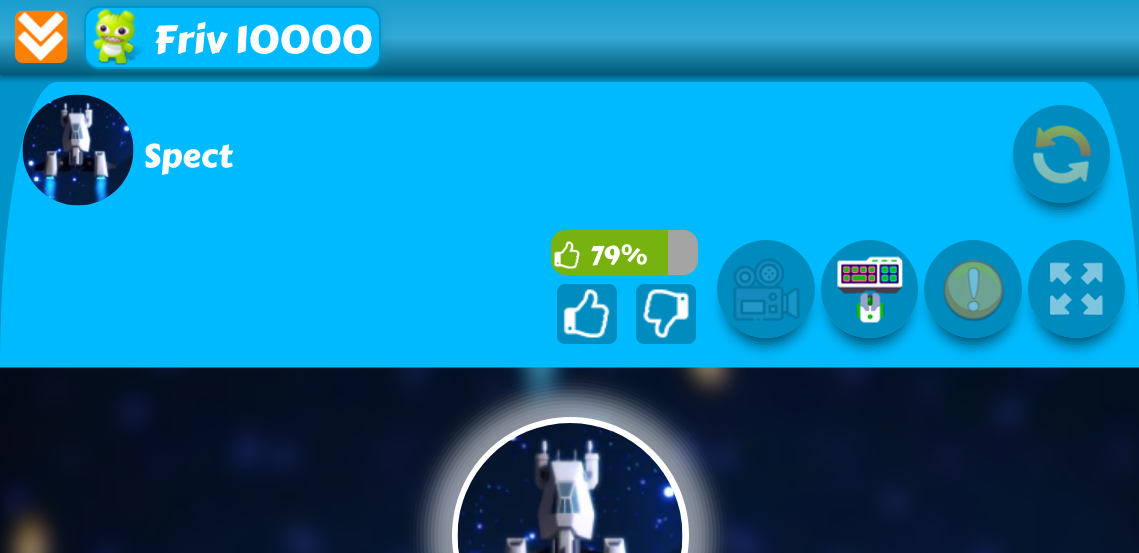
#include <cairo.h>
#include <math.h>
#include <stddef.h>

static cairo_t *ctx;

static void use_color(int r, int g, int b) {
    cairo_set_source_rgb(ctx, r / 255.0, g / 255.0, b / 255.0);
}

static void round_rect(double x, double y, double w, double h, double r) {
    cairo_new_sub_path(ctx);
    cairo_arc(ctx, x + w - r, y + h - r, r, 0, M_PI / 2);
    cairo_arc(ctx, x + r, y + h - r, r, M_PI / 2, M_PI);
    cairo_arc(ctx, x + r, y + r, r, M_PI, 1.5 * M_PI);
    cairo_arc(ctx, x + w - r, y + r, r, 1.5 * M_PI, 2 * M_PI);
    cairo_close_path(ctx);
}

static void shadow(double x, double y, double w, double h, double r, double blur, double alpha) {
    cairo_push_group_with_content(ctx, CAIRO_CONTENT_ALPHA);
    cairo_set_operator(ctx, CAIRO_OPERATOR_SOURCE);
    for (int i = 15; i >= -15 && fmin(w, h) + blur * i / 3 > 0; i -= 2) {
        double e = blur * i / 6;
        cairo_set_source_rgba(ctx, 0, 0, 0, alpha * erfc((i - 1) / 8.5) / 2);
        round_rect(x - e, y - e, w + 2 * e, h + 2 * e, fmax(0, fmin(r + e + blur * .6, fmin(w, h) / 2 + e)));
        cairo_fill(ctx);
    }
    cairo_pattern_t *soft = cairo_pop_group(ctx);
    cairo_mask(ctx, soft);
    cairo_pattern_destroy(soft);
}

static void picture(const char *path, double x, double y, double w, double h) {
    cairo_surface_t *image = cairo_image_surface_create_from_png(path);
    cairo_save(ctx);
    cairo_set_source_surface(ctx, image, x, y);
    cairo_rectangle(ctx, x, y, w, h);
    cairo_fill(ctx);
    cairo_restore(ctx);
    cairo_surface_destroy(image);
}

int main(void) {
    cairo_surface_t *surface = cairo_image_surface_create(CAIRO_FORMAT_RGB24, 1139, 553);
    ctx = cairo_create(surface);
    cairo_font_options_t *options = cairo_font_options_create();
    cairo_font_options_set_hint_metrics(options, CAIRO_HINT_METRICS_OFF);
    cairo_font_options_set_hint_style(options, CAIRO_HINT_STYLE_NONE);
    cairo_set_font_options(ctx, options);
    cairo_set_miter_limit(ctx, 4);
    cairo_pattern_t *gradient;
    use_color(0, 147, 201);
    cairo_paint(ctx);
    use_color(0, 0, 0);
    shadow(0, 3, 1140, 75, 0, 3, 0.4);
    gradient = cairo_pattern_create_linear(570, 0, 570, 75);
    cairo_pattern_add_color_stop_rgba(gradient, 0, 0.102, 0.62, 0.808, 1);
    cairo_pattern_add_color_stop_rgba(gradient, 0.5, 0.2, 0.663, 0.831, 1);
    cairo_pattern_add_color_stop_rgba(gradient, 1, 0, 0.345, 0.475, 1);
    cairo_set_source(ctx, gradient);
    cairo_pattern_destroy(gradient);
    cairo_rectangle(ctx, 0, 0, 1139, 75);
    cairo_fill(ctx);
    picture("img1.png", 15, 10, 53, 53);
    use_color(0, 146, 191);
    shadow(84, 6, 297, 63, 15, 6, 0.6);
    use_color(0, 186, 255);
    round_rect(85, 7, 295, 61, 14);
    cairo_fill_preserve(ctx);
    use_color(0, 147, 201);
    cairo_stroke(ctx);
    picture("img2.png", 90, 8, 54, 57);
    cairo_select_font_face(ctx, "Carter One", CAIRO_FONT_SLANT_NORMAL, CAIRO_FONT_WEIGHT_NORMAL);
    cairo_set_font_size(ctx, 39);
    use_color(255, 255, 255);
    cairo_move_to(ctx, 153, 53);
    cairo_show_text(ctx, "Friv 10000");
    use_color(0, 186, 255);
    cairo_new_path(ctx);
    cairo_move_to(ctx, 57, 82);
    cairo_line_to(ctx, 1083, 82);
    cairo_curve_to(ctx, 1114, 82, 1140, 210, 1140, 368);
    cairo_line_to(ctx, 0, 368);
    cairo_curve_to(ctx, 0, 210, 26, 82, 57, 82);
    cairo_close_path(ctx);
    cairo_fill(ctx);
    picture("img3.png", 22, 94, 112, 112);
    cairo_set_font_size(ctx, 33);
    use_color(255, 255, 255);
    cairo_move_to(ctx, 143, 167);
    cairo_show_text(ctx, "Spect");
    cairo_save(ctx);
    cairo_set_fill_rule(ctx, CAIRO_FILL_RULE_EVEN_ODD);
    cairo_new_path(ctx);
    cairo_move_to(ctx, 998, 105);
    cairo_line_to(ctx, 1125, 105);
    cairo_line_to(ctx, 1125, 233);
    cairo_line_to(ctx, 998, 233);
    cairo_close_path(ctx);
    cairo_move_to(ctx, 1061.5, 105);
    cairo_curve_to(ctx, 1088.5, 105, 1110, 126.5, 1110, 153.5);
    cairo_line_to(ctx, 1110, 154.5);
    cairo_curve_to(ctx, 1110, 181.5, 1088.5, 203, 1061.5, 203);
    cairo_curve_to(ctx, 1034.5, 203, 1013, 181.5, 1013, 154.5);
    cairo_line_to(ctx, 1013, 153.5);
    cairo_curve_to(ctx, 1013, 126.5, 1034.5, 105, 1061.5, 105);
    cairo_close_path(ctx);
    cairo_clip(ctx);
    use_color(0, 0, 0);
    shadow(1022, 129, 79, 80, 39.5, 7.5, 0.6);
    cairo_restore(ctx);
    cairo_set_source_rgba(ctx, 0, 0, 0, 0.25);
    round_rect(1013, 105, 97, 98, 48.5);
    cairo_fill(ctx);
    picture("img4.png", 1033, 125, 58, 59);
    use_color(119, 178, 17);
    cairo_new_path(ctx);
    cairo_move_to(ctx, 566, 230);
    cairo_line_to(ctx, 668, 230);
    cairo_line_to(ctx, 668, 275);
    cairo_line_to(ctx, 566, 275);
    cairo_curve_to(ctx, 557.5, 275, 551, 268.5, 551, 260);
    cairo_line_to(ctx, 551, 245);
    cairo_curve_to(ctx, 551, 236.5, 557.5, 230, 566, 230);
    cairo_close_path(ctx);
    cairo_fill(ctx);
    picture("img5.png", 554, 241, 26, 28);
    cairo_set_font_size(ctx, 25.5);
    use_color(255, 255, 255);
    cairo_move_to(ctx, 590, 264);
    cairo_show_text(ctx, "79%");
    use_color(164, 164, 164);
    cairo_new_path(ctx);
    cairo_move_to(ctx, 668, 230);
    cairo_line_to(ctx, 683, 230);
    cairo_curve_to(ctx, 691.5, 230, 698, 236.5, 698, 245);
    cairo_line_to(ctx, 698, 260);
    cairo_curve_to(ctx, 698, 268.5, 691.5, 275, 683, 275);
    cairo_line_to(ctx, 668, 275);
    cairo_close_path(ctx);
    cairo_fill(ctx);
    use_color(0, 140, 191);
    round_rect(557, 284, 60, 60, 8);
    cairo_fill(ctx);
    picture("img6.png", 563, 289, 47, 49);
    round_rect(636, 284, 60, 60, 8);
    cairo_fill(ctx);
    picture("img7.png", 643, 289, 46, 49);
    cairo_save(ctx);
    cairo_set_fill_rule(ctx, CAIRO_FILL_RULE_EVEN_ODD);
    cairo_new_path(ctx);
    cairo_move_to(ctx, 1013, 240);
    cairo_line_to(ctx, 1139, 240);
    cairo_line_to(ctx, 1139, 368);
    cairo_line_to(ctx, 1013, 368);
    cairo_close_path(ctx);
    cairo_move_to(ctx, 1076.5, 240);
    cairo_curve_to(ctx, 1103.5, 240, 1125, 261.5, 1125, 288.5);
    cairo_line_to(ctx, 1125, 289.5);
    cairo_curve_to(ctx, 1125, 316.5, 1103.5, 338, 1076.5, 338);
    cairo_curve_to(ctx, 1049.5, 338, 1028, 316.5, 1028, 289.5);
    cairo_line_to(ctx, 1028, 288.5);
    cairo_curve_to(ctx, 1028, 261.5, 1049.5, 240, 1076.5, 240);
    cairo_close_path(ctx);
    cairo_clip(ctx);
    use_color(0, 0, 0);
    shadow(1037, 264, 79, 80, 39.5, 7.5, 0.6);
    cairo_restore(ctx);
    cairo_set_source_rgba(ctx, 0, 0, 0, 0.25);
    round_rect(1028, 240, 97, 98, 48.5);
    cairo_fill(ctx);
    cairo_save(ctx);
    cairo_set_fill_rule(ctx, CAIRO_FILL_RULE_EVEN_ODD);
    cairo_new_path(ctx);
    cairo_move_to(ctx, 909, 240);
    cairo_line_to(ctx, 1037, 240);
    cairo_line_to(ctx, 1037, 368);
    cairo_line_to(ctx, 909, 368);
    cairo_close_path(ctx);
    cairo_move_to(ctx, 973, 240);
    cairo_curve_to(ctx, 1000, 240, 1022, 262, 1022, 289);
    cairo_curve_to(ctx, 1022, 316, 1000, 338, 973, 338);
    cairo_curve_to(ctx, 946, 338, 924, 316, 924, 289);
    cairo_curve_to(ctx, 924, 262, 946, 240, 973, 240);
    cairo_close_path(ctx);
    cairo_clip(ctx);
    use_color(0, 0, 0);
    shadow(933, 264, 80, 80, 40, 7.5, 0.6);
    cairo_restore(ctx);
    cairo_arc(ctx, 973, 289, 49, 0, 2 * M_PI);
    cairo_fill(ctx);
    cairo_save(ctx);
    cairo_set_fill_rule(ctx, CAIRO_FILL_RULE_EVEN_ODD);
    cairo_new_path(ctx);
    cairo_move_to(ctx, 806, 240);
    cairo_line_to(ctx, 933, 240);
    cairo_line_to(ctx, 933, 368);
    cairo_line_to(ctx, 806, 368);
    cairo_close_path(ctx);
    cairo_move_to(ctx, 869.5, 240);
    cairo_curve_to(ctx, 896.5, 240, 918, 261.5, 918, 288.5);
    cairo_line_to(ctx, 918, 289.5);
    cairo_curve_to(ctx, 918, 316.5, 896.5, 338, 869.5, 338);
    cairo_curve_to(ctx, 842.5, 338, 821, 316.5, 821, 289.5);
    cairo_line_to(ctx, 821, 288.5);
    cairo_curve_to(ctx, 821, 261.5, 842.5, 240, 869.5, 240);
    cairo_close_path(ctx);
    cairo_clip(ctx);
    use_color(0, 0, 0);
    shadow(830, 264, 79, 80, 39.5, 7.5, 0.6);
    cairo_restore(ctx);
    round_rect(821, 240, 97, 98, 48.5);
    cairo_fill(ctx);
    cairo_save(ctx);
    cairo_set_fill_rule(ctx, CAIRO_FILL_RULE_EVEN_ODD);
    cairo_new_path(ctx);
    cairo_move_to(ctx, 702, 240);
    cairo_line_to(ctx, 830, 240);
    cairo_line_to(ctx, 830, 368);
    cairo_line_to(ctx, 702, 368);
    cairo_close_path(ctx);
    cairo_move_to(ctx, 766, 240);
    cairo_curve_to(ctx, 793, 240, 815, 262, 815, 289);
    cairo_curve_to(ctx, 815, 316, 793, 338, 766, 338);
    cairo_curve_to(ctx, 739, 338, 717, 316, 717, 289);
    cairo_curve_to(ctx, 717, 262, 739, 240, 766, 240);
    cairo_close_path(ctx);
    cairo_clip(ctx);
    use_color(0, 0, 0);
    shadow(726, 264, 80, 80, 40, 7.5, 0.6);
    cairo_restore(ctx);
    cairo_arc(ctx, 766, 289, 49, 0, 2 * M_PI);
    cairo_fill(ctx);
    picture("img8.png", 733, 258, 67, 63);
    picture("img9.png", 837, 256, 66, 67);
    picture("img10.png", 943, 259, 62, 63);
    picture("img11.png", 1050, 262, 53, 53);
    picture("img13.png", 0, 367, 1139, 186);
    use_color(255, 255, 255);
    shadow(429, 395, 282, 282, 141, 11, 0.55);
    use_color(255, 255, 255);
    cairo_arc(ctx, 570.5, 535.5, 115.5, 0, 2 * M_PI);
    cairo_fill_preserve(ctx);
    cairo_set_line_width(ctx, 6);
    cairo_stroke(ctx);
    picture("img12.png", 457, 423, 226, 130);
    cairo_surface_write_to_png(surface, "result.png");
    cairo_font_options_destroy(options);
    cairo_destroy(ctx);
    cairo_surface_destroy(surface);
    return 0;
}
